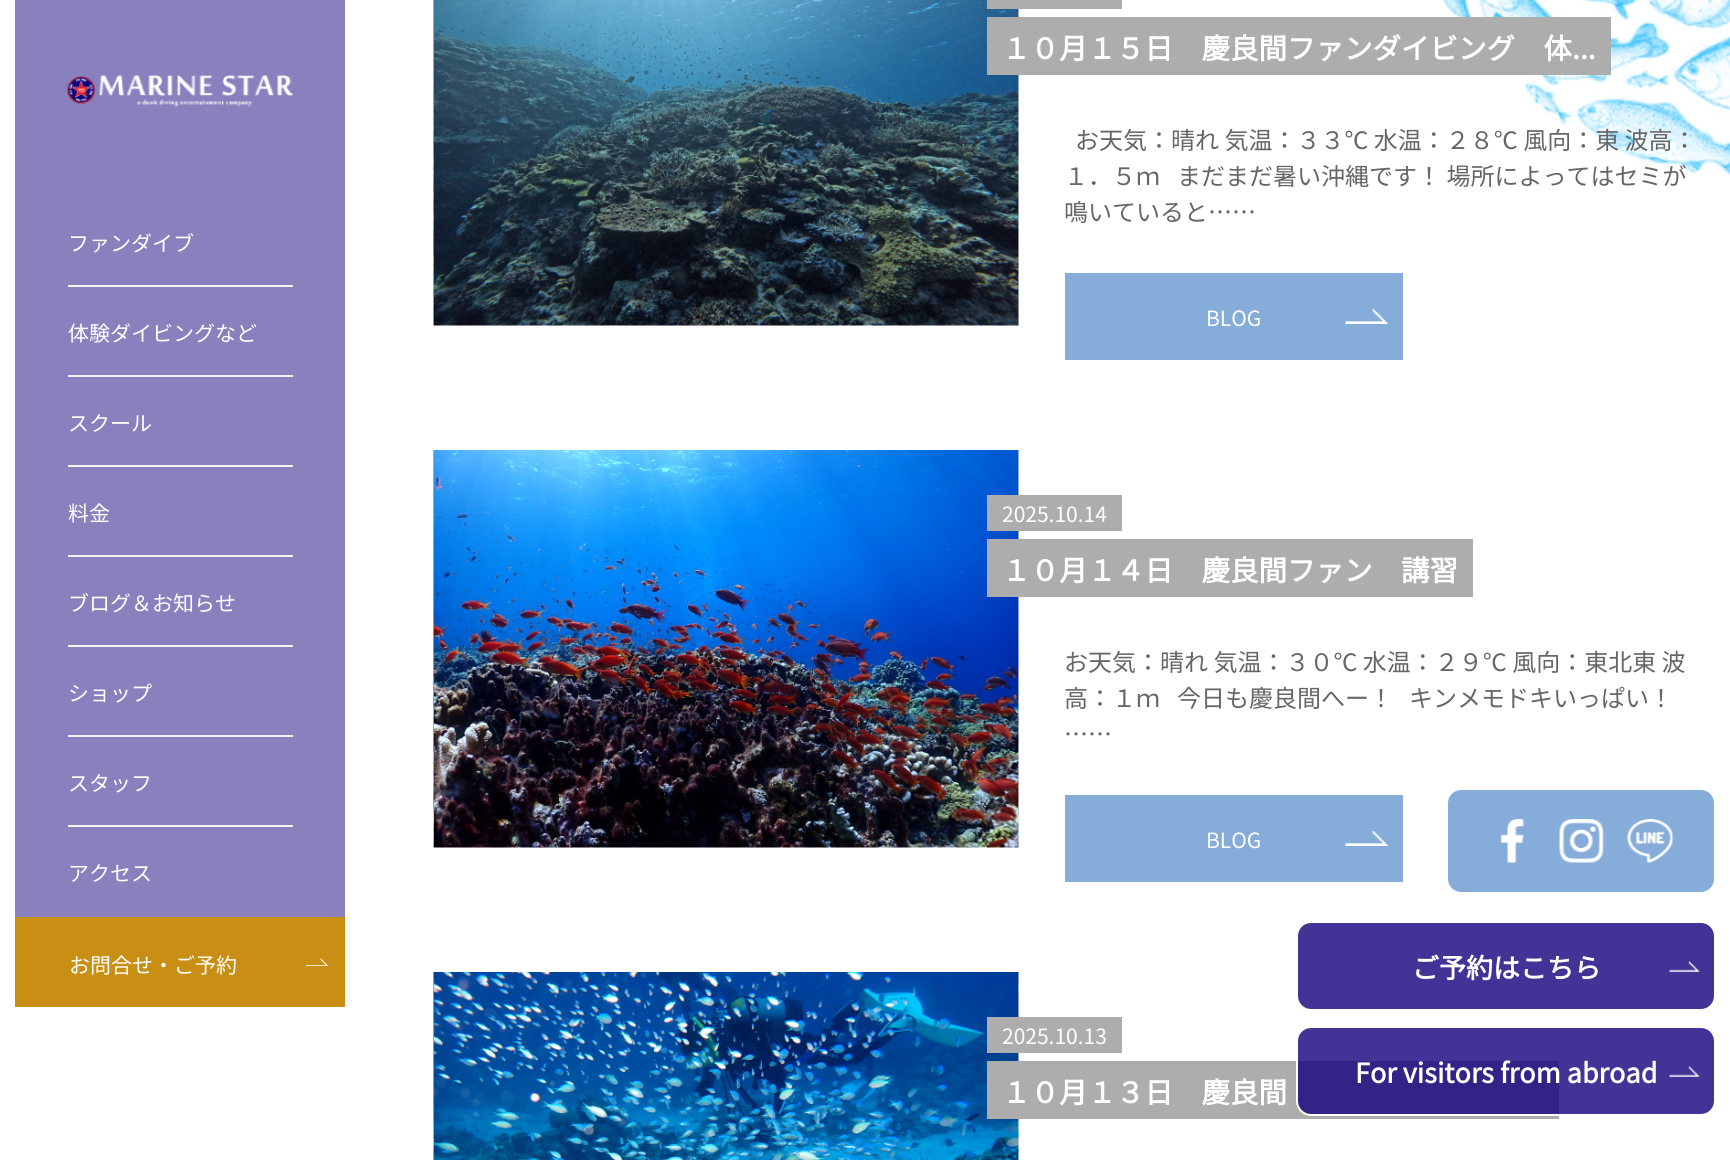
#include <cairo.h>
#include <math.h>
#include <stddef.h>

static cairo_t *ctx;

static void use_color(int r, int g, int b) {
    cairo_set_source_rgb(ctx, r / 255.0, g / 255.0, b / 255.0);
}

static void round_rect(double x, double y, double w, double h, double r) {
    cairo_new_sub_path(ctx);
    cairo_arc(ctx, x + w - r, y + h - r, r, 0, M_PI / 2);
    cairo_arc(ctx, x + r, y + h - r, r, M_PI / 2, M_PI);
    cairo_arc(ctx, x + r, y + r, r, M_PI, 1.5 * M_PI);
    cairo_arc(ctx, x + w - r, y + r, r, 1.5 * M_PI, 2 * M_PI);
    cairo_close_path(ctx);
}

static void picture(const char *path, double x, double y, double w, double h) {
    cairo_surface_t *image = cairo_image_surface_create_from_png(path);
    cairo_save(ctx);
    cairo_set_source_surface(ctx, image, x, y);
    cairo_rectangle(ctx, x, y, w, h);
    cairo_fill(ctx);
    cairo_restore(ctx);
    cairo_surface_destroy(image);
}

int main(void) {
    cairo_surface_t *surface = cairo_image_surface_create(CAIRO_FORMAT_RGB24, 1730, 1160);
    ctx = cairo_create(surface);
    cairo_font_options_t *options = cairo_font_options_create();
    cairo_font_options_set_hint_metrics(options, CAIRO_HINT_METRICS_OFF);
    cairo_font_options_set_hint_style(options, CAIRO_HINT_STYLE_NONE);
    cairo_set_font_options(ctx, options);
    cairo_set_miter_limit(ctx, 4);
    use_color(255, 255, 255);
    cairo_paint(ctx);
    use_color(137, 128, 190);
    cairo_rectangle(ctx, 15, 0, 330, 917);
    cairo_fill(ctx);
    picture("img1.png", 67, 75, 226, 32);
    use_color(243, 243, 243);
    cairo_rectangle(ctx, 68, 285, 225, 2);
    cairo_fill(ctx);
    cairo_select_font_face(ctx, "Noto Sans JP Thin", CAIRO_FONT_SLANT_NORMAL, CAIRO_FONT_WEIGHT_NORMAL);
    cairo_set_font_size(ctx, 21);
    use_color(255, 255, 255);
    cairo_move_to(ctx, 68, 251);
    cairo_show_text(ctx, "ファンダイブ");
    use_color(243, 243, 243);
    cairo_rectangle(ctx, 68, 375, 225, 2);
    cairo_fill(ctx);
    use_color(255, 255, 255);
    cairo_move_to(ctx, 68, 341);
    cairo_show_text(ctx, "体験ダイビングなど");
    use_color(243, 243, 243);
    cairo_rectangle(ctx, 68, 465, 225, 2);
    cairo_fill(ctx);
    use_color(255, 255, 255);
    cairo_move_to(ctx, 68, 431);
    cairo_show_text(ctx, "スクール");
    use_color(243, 243, 243);
    cairo_rectangle(ctx, 68, 555, 225, 2);
    cairo_fill(ctx);
    use_color(255, 255, 255);
    cairo_move_to(ctx, 68, 521);
    cairo_show_text(ctx, "料金");
    use_color(243, 243, 243);
    cairo_rectangle(ctx, 68, 645, 225, 2);
    cairo_fill(ctx);
    use_color(255, 255, 255);
    cairo_move_to(ctx, 68, 611);
    cairo_show_text(ctx, "ブログ＆お知らせ");
    use_color(243, 243, 243);
    cairo_rectangle(ctx, 68, 735, 225, 2);
    cairo_fill(ctx);
    use_color(255, 255, 255);
    cairo_move_to(ctx, 68, 701);
    cairo_show_text(ctx, "ショップ");
    use_color(243, 243, 243);
    cairo_rectangle(ctx, 68, 825, 225, 2);
    cairo_fill(ctx);
    use_color(255, 255, 255);
    cairo_move_to(ctx, 68, 791);
    cairo_show_text(ctx, "スタッフ");
    cairo_move_to(ctx, 68, 881);
    cairo_show_text(ctx, "アクセス");
    use_color(201, 142, 20);
    cairo_rectangle(ctx, 15, 917, 330, 90);
    cairo_fill(ctx);
    use_color(255, 255, 255);
    cairo_move_to(ctx, 69, 973);
    cairo_show_text(ctx, "お問合せ・ご予約");
    picture("img2.png", 306, 958, 23, 8);
    use_color(134, 172, 217);
    round_rect(1447, 789, 268, 104, 14);
    cairo_fill_preserve(ctx);
    use_color(255, 255, 255);
    cairo_stroke(ctx);
    picture("img3.png", 1500, 819, 25, 44);
    picture("img4.png", 1559, 819, 45, 44);
    picture("img5.png", 1627, 819, 46, 44);
    picture("img6.png", 1442, 0, 288, 176);
    picture("img7.png", 433, 0, 586, 326);
    use_color(173, 173, 173);
    cairo_rectangle(ctx, 987, 0, 135, 9);
    cairo_fill(ctx);
    cairo_rectangle(ctx, 987, 17, 624, 58);
    cairo_fill(ctx);
    cairo_select_font_face(ctx, "Noto Sans JP", CAIRO_FONT_SLANT_NORMAL, CAIRO_FONT_WEIGHT_BOLD);
    cairo_set_font_size(ctx, 28.5);
    use_color(255, 255, 255);
    cairo_move_to(ctx, 1002, 59);
    cairo_show_text(ctx, "１０月１５日　慶良間ファンダイビング　体...");
    cairo_select_font_face(ctx, "Noto Sans JP Thin", CAIRO_FONT_SLANT_NORMAL, CAIRO_FONT_WEIGHT_NORMAL);
    cairo_set_font_size(ctx, 24);
    use_color(102, 102, 102);
    cairo_move_to(ctx, 1075, 149);
    cairo_show_text(ctx, "お天気：晴れ 気温：３３℃ 水温：２８℃ 風向：東 波高：");
    cairo_move_to(ctx, 1064, 185);
    cairo_show_text(ctx, "１．５ｍ");
    cairo_move_to(ctx, 1177, 185);
    cairo_show_text(ctx, "まだまだ暑い沖縄です！ 場所によってはセミが");
    cairo_move_to(ctx, 1064, 221);
    cairo_show_text(ctx, "鳴いていると……");
    use_color(134, 172, 217);
    cairo_rectangle(ctx, 1065, 273, 338, 87);
    cairo_fill(ctx);
    cairo_set_font_size(ctx, 21);
    use_color(255, 255, 255);
    cairo_move_to(ctx, 1206, 326);
    cairo_show_text(ctx, "BLOG");
    picture("img8.png", 1345, 309, 43, 15);
    picture("img9.png", 433, 450, 586, 398);
    use_color(173, 173, 173);
    cairo_rectangle(ctx, 987, 495, 135, 36);
    cairo_fill(ctx);
    use_color(255, 255, 255);
    cairo_move_to(ctx, 1002, 522);
    cairo_show_text(ctx, "2025.10.14");
    use_color(173, 173, 173);
    cairo_rectangle(ctx, 987, 539, 486, 58);
    cairo_fill(ctx);
    cairo_select_font_face(ctx, "Noto Sans JP", CAIRO_FONT_SLANT_NORMAL, CAIRO_FONT_WEIGHT_BOLD);
    cairo_set_font_size(ctx, 28.5);
    use_color(255, 255, 255);
    cairo_move_to(ctx, 1002, 581);
    cairo_show_text(ctx, "１０月１４日　慶良間ファン　講習");
    cairo_select_font_face(ctx, "Noto Sans JP Thin", CAIRO_FONT_SLANT_NORMAL, CAIRO_FONT_WEIGHT_NORMAL);
    cairo_set_font_size(ctx, 24);
    use_color(102, 102, 102);
    cairo_move_to(ctx, 1064, 671);
    cairo_show_text(ctx, "お天気：晴れ 気温：３０℃ 水温：２９℃ 風向：東北東 波");
    cairo_move_to(ctx, 1064, 707);
    cairo_show_text(ctx, "高：１ｍ");
    cairo_move_to(ctx, 1177, 707);
    cairo_show_text(ctx, "今日も慶良間へー！");
    cairo_move_to(ctx, 1409, 707);
    cairo_show_text(ctx, "キンメモドキいっぱい！");
    cairo_move_to(ctx, 1064, 743);
    cairo_show_text(ctx, "……");
    use_color(134, 172, 217);
    cairo_rectangle(ctx, 1065, 795, 338, 87);
    cairo_fill(ctx);
    cairo_set_font_size(ctx, 21);
    use_color(255, 255, 255);
    cairo_move_to(ctx, 1206, 848);
    cairo_show_text(ctx, "BLOG");
    picture("img8.png", 1345, 831, 43, 15);
    picture("img10.png", 433, 972, 586, 188);
    use_color(173, 173, 173);
    cairo_rectangle(ctx, 987, 1017, 135, 36);
    cairo_fill(ctx);
    use_color(255, 255, 255);
    cairo_move_to(ctx, 1002, 1044);
    cairo_show_text(ctx, "2025.10.13");
    use_color(173, 173, 173);
    cairo_rectangle(ctx, 987, 1061, 572, 58);
    cairo_fill(ctx);
    cairo_select_font_face(ctx, "Noto Sans JP", CAIRO_FONT_SLANT_NORMAL, CAIRO_FONT_WEIGHT_BOLD);
    cairo_set_font_size(ctx, 28.5);
    use_color(255, 255, 255);
    cairo_move_to(ctx, 1002, 1103);
    cairo_show_text(ctx, "１０月１３日　慶良間");
    use_color(66, 51, 150);
    round_rect(1297, 922, 418, 88, 14);
    cairo_fill_preserve(ctx);
    use_color(255, 255, 255);
    cairo_stroke(ctx);
    cairo_set_font_size(ctx, 27);
    cairo_move_to(ctx, 1412, 978);
    cairo_show_text(ctx, "ご予約はこちら");
    picture("img11.png", 1669, 961, 31, 11);
    cairo_set_source_rgba(ctx, 0.075, 0, 0.486, 0.8);
    round_rect(1297, 1027, 418, 88, 14);
    cairo_fill_preserve(ctx);
    use_color(255, 255, 255);
    cairo_stroke(ctx);
    cairo_move_to(ctx, 1355, 1083);
    cairo_show_text(ctx, "For visitors from abroad");
    picture("img12.png", 1669, 1066, 31, 11);
    cairo_surface_write_to_png(surface, "result.png");
    cairo_font_options_destroy(options);
    cairo_destroy(ctx);
    cairo_surface_destroy(surface);
    return 0;
}
